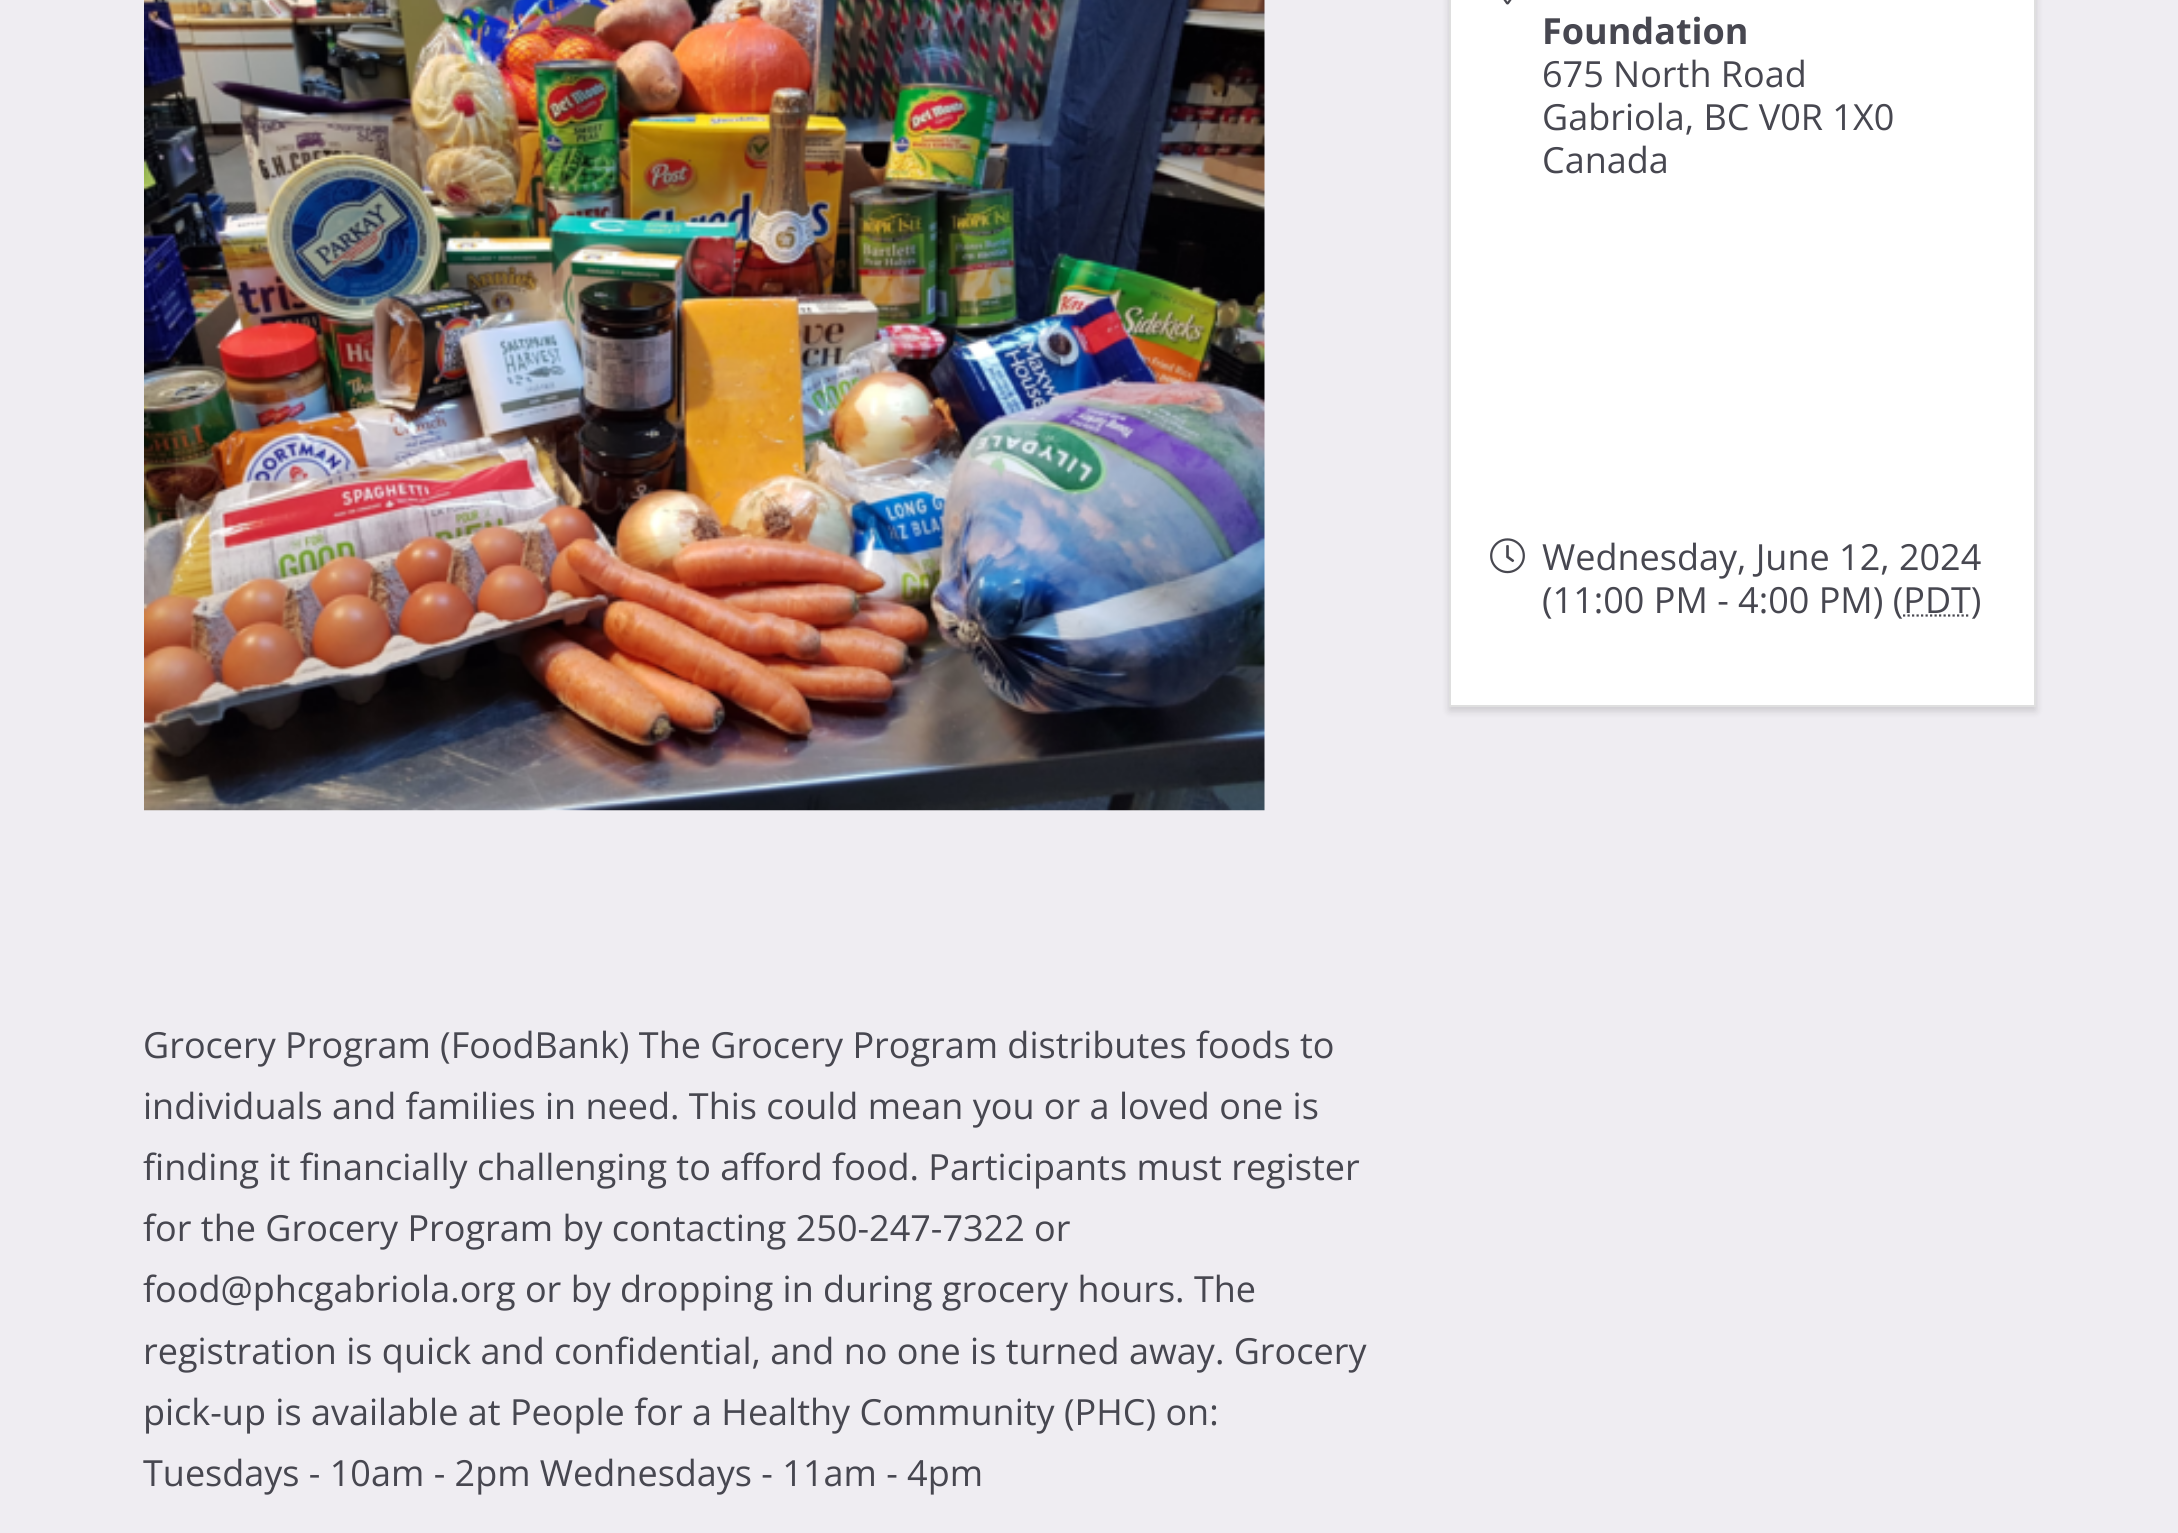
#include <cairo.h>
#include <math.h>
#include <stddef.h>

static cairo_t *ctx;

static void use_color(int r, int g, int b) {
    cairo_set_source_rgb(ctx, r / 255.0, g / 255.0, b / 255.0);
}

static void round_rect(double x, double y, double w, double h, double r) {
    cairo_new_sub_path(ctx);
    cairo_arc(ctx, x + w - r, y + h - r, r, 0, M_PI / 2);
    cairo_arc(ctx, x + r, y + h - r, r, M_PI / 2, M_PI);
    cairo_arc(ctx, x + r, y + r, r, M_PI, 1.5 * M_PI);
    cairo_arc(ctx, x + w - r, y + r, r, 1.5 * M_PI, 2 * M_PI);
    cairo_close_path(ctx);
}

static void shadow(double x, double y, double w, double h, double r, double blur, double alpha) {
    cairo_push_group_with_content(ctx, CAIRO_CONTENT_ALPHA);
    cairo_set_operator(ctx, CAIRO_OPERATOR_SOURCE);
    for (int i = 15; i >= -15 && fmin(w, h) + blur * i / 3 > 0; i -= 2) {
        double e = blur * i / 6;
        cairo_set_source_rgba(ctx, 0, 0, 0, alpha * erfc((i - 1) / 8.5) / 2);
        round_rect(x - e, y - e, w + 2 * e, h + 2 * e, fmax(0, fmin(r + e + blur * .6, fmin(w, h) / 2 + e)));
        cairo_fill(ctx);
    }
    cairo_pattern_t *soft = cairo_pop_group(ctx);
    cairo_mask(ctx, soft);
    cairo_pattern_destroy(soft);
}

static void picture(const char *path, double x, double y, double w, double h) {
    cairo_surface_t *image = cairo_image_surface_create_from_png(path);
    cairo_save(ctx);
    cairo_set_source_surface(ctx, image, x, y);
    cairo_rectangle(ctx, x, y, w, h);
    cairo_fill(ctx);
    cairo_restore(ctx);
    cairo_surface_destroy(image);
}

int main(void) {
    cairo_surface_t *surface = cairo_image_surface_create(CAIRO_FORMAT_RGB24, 2178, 1533);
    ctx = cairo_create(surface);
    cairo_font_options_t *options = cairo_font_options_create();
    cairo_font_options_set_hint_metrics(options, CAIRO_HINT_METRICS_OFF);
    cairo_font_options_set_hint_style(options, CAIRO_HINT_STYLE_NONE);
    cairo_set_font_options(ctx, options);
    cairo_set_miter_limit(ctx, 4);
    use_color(239, 237, 242);
    cairo_paint(ctx);
    use_color(0, 0, 0);
    shadow(1449, -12, 587, 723, 0, 4, 0.15);
    use_color(255, 255, 255);
    cairo_rectangle(ctx, 1450, -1, 585, 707);
    cairo_fill_preserve(ctx);
    use_color(223, 223, 223);
    cairo_stroke(ctx);
    picture("img1.png", 1503, 0, 9, 5);
    cairo_select_font_face(ctx, "Open Sans", CAIRO_FONT_SLANT_NORMAL, CAIRO_FONT_WEIGHT_BOLD);
    cairo_set_font_size(ctx, 36);
    use_color(71, 71, 80);
    cairo_move_to(ctx, 1542, 44);
    cairo_show_text(ctx, "Foundation");
    cairo_select_font_face(ctx, "Open Sans", CAIRO_FONT_SLANT_NORMAL, CAIRO_FONT_WEIGHT_NORMAL);
    cairo_move_to(ctx, 1542, 87);
    cairo_show_text(ctx, "675 North Road");
    cairo_move_to(ctx, 1542, 130);
    cairo_show_text(ctx, "Gabriola, BC V0R 1X0");
    cairo_move_to(ctx, 1542, 173);
    cairo_show_text(ctx, "Canada");
    picture("img2.png", 1490, 538, 35, 36);
    cairo_move_to(ctx, 1542, 570);
    cairo_show_text(ctx, "Wednesday, June 12, 2024");
    cairo_move_to(ctx, 1542, 613);
    cairo_show_text(ctx, "(11:00 PM - 4:00 PM) (PDT)");
    cairo_new_path(ctx);
    cairo_move_to(ctx, 1903, 615.5);
    cairo_line_to(ctx, 1970.5, 615.5);
    use_color(72, 72, 80);
    cairo_set_line_width(ctx, 2.2);
    cairo_set_dash(ctx, (double[]){2.25, 2.25}, 2, 0);
    cairo_stroke(ctx);
    picture("img3.png", 144, 0, 1121, 811);
    use_color(71, 71, 80);
    cairo_move_to(ctx, 143, 1058);
    cairo_show_text(ctx, "Grocery Program (FoodBank) The Grocery Program distributes foods to");
    cairo_move_to(ctx, 143, 1119);
    cairo_show_text(ctx, "individuals and families in need. This could mean you or a loved one is");
    cairo_move_to(ctx, 143, 1180);
    cairo_show_text(ctx, "finding it financially challenging to afford food. Participants must register");
    cairo_move_to(ctx, 143, 1241);
    cairo_show_text(ctx, "for the Grocery Program by contacting 250-247-7322 or");
    cairo_move_to(ctx, 143, 1302);
    cairo_show_text(ctx, "food@phcgabriola.org or by dropping in during grocery hours. The");
    cairo_move_to(ctx, 143, 1364);
    cairo_show_text(ctx, "registration is quick and confidential, and no one is turned away. Grocery");
    cairo_move_to(ctx, 143, 1425);
    cairo_show_text(ctx, "pick-up is available at People for a Healthy Community (PHC) on:");
    cairo_move_to(ctx, 143, 1486);
    cairo_show_text(ctx, "Tuesdays - 10am - 2pm Wednesdays - 11am - 4pm");
    cairo_surface_write_to_png(surface, "result.png");
    cairo_font_options_destroy(options);
    cairo_destroy(ctx);
    cairo_surface_destroy(surface);
    return 0;
}
